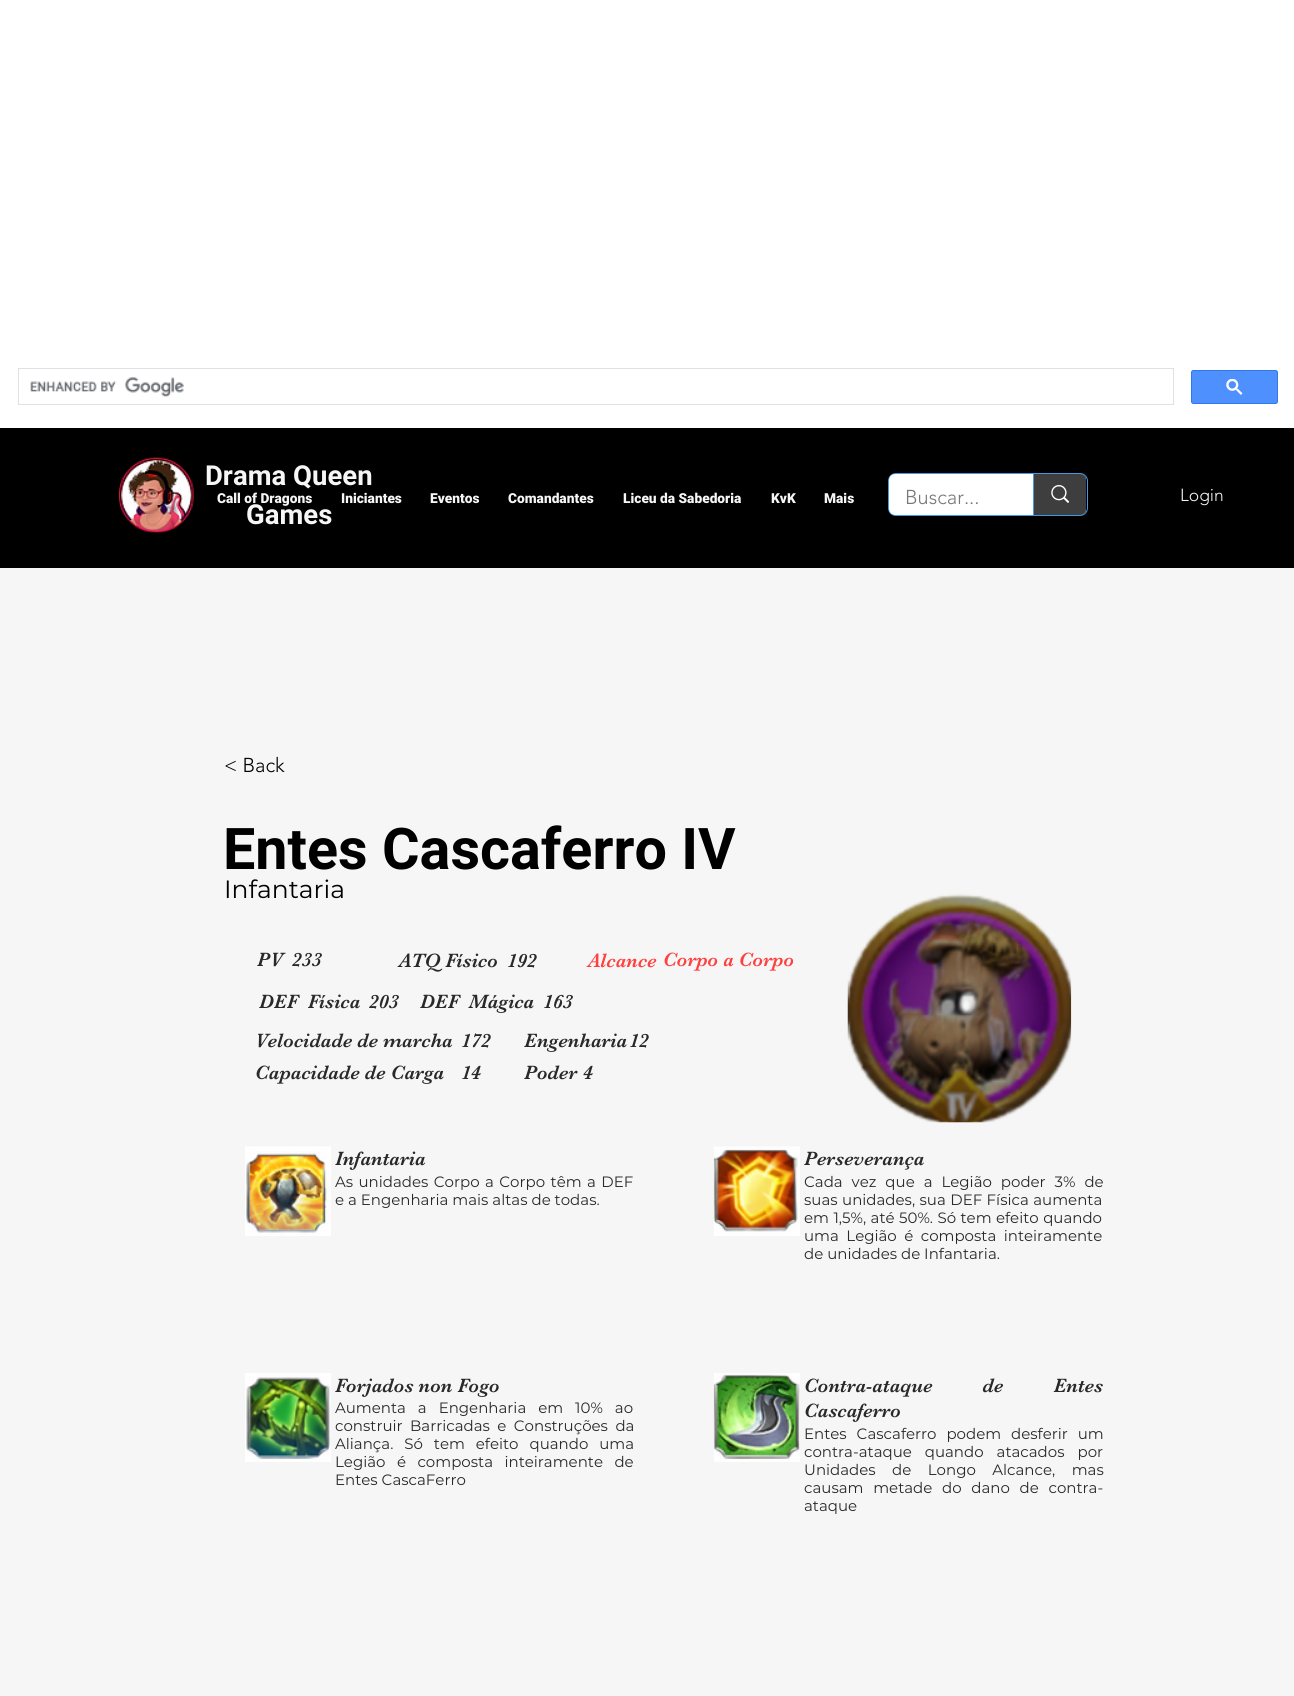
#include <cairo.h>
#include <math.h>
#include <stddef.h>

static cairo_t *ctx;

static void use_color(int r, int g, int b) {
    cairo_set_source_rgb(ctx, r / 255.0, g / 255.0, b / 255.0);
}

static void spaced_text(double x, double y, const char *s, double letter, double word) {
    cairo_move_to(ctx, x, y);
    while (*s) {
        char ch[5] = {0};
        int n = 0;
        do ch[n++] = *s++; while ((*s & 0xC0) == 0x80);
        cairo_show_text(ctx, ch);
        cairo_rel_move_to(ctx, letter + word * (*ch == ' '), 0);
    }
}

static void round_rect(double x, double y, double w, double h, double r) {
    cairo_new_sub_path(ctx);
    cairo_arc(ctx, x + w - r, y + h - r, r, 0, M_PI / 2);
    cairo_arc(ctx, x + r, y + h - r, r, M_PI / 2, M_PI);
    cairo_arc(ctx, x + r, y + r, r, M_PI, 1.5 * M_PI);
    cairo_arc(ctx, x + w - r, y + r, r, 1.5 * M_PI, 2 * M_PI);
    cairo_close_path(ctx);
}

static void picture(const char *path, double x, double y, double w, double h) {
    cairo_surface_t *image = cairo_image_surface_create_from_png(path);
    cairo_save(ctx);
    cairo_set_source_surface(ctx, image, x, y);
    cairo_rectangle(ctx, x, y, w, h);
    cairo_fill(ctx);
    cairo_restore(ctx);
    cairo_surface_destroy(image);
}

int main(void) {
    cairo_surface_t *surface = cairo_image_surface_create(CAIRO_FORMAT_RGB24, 1294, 1696);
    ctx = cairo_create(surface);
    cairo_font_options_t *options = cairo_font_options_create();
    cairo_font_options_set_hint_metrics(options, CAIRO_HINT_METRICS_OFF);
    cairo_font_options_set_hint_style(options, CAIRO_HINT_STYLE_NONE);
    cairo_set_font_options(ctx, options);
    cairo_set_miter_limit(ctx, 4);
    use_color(255, 255, 255);
    cairo_paint(ctx);
    cairo_rectangle(ctx, 18.5, 368.5, 1155, 36);
    use_color(223, 225, 229);
    cairo_set_line_width(ctx, 1);
    cairo_stroke(ctx);
    picture("img1.png", 30, 377, 154, 20);
    use_color(77, 144, 254);
    round_rect(1191.5, 370.5, 86, 33, 2);
    cairo_fill_preserve(ctx);
    use_color(48, 121, 237);
    cairo_stroke(ctx);
    picture("img2.png", 1226, 379, 17, 16);
    use_color(0, 0, 0);
    cairo_rectangle(ctx, 0, 428, 1294, 140);
    cairo_fill(ctx);
    picture("img3.png", 118, 457, 76, 76);
    cairo_select_font_face(ctx, "Roboto", CAIRO_FONT_SLANT_NORMAL, CAIRO_FONT_WEIGHT_BOLD);
    cairo_set_font_size(ctx, 27.5);
    use_color(246, 246, 246);
    cairo_move_to(ctx, 205, 485);
    cairo_show_text(ctx, "Drama Queen");
    cairo_move_to(ctx, 246, 524);
    cairo_show_text(ctx, "Games");
    round_rect(888.5, 473.5, 199, 42, 7.5);
    use_color(61, 155, 233);
    cairo_stroke(ctx);
    use_color(255, 255, 255);
    round_rect(889, 474, 197, 41, 6);
    cairo_fill(ctx);
    cairo_select_font_face(ctx, "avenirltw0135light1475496 Light", CAIRO_FONT_SLANT_NORMAL, CAIRO_FONT_WEIGHT_NORMAL);
    cairo_set_font_size(ctx, 20);
    use_color(120, 120, 120);
    cairo_move_to(ctx, 905, 504);
    cairo_show_text(ctx, "Buscar...");
    use_color(62, 62, 62);
    cairo_new_path(ctx);
    cairo_move_to(ctx, 1033, 474);
    cairo_line_to(ctx, 1080, 474);
    cairo_curve_to(ctx, 1083.5, 474, 1086, 476.5, 1086, 480);
    cairo_line_to(ctx, 1086, 509);
    cairo_curve_to(ctx, 1086, 512.5, 1083.5, 515, 1080, 515);
    cairo_line_to(ctx, 1033, 515);
    cairo_close_path(ctx);
    cairo_fill(ctx);
    use_color(61, 155, 233);
    cairo_rectangle(ctx, 1033, 474, 1, 41);
    cairo_fill(ctx);
    picture("img4.png", 1051, 485, 18, 18);
    cairo_set_font_size(ctx, 17.5);
    use_color(246, 246, 246);
    cairo_move_to(ctx, 1180, 501);
    cairo_show_text(ctx, "Login");
    cairo_select_font_face(ctx, "Roboto Black", CAIRO_FONT_SLANT_NORMAL, CAIRO_FONT_WEIGHT_NORMAL);
    cairo_set_font_size(ctx, 13.75);
    cairo_move_to(ctx, 217, 503);
    cairo_show_text(ctx, "Call of Dragons");
    cairo_move_to(ctx, 341, 503);
    cairo_show_text(ctx, "Iniciantes");
    cairo_move_to(ctx, 430, 503);
    cairo_show_text(ctx, "Eventos");
    cairo_move_to(ctx, 508, 503);
    cairo_show_text(ctx, "Comandantes");
    cairo_move_to(ctx, 623, 503);
    cairo_show_text(ctx, "Liceu da Sabedoria");
    cairo_move_to(ctx, 771, 503);
    cairo_show_text(ctx, "KvK");
    cairo_move_to(ctx, 824, 503);
    cairo_show_text(ctx, "Mais");
    cairo_rectangle(ctx, 0, 568, 1294, 1128);
    cairo_fill(ctx);
    cairo_select_font_face(ctx, "avenirltw0135light1475496 Light", CAIRO_FONT_SLANT_NORMAL, CAIRO_FONT_WEIGHT_NORMAL);
    cairo_set_font_size(ctx, 20);
    use_color(0, 0, 0);
    cairo_move_to(ctx, 224, 772);
    cairo_show_text(ctx, "< Back");
    cairo_select_font_face(ctx, "Roboto", CAIRO_FONT_SLANT_NORMAL, CAIRO_FONT_WEIGHT_BOLD);
    cairo_set_font_size(ctx, 57.5);
    cairo_move_to(ctx, 223, 869);
    cairo_show_text(ctx, "Entes Cascaferro IV");
    cairo_select_font_face(ctx, "Montserrat", CAIRO_FONT_SLANT_NORMAL, CAIRO_FONT_WEIGHT_NORMAL);
    cairo_set_font_size(ctx, 25);
    cairo_move_to(ctx, 224, 898);
    cairo_show_text(ctx, "Infantaria");
    cairo_select_font_face(ctx, "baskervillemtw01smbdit", CAIRO_FONT_SLANT_NORMAL, CAIRO_FONT_WEIGHT_NORMAL);
    cairo_set_font_size(ctx, 20);
    use_color(41, 41, 41);
    cairo_move_to(ctx, 257, 966);
    cairo_show_text(ctx, "PV");
    cairo_move_to(ctx, 292, 966);
    cairo_show_text(ctx, "233");
    cairo_move_to(ctx, 399, 967);
    cairo_show_text(ctx, "ATQ Físico");
    cairo_move_to(ctx, 507, 967);
    cairo_show_text(ctx, "192");
    use_color(255, 64, 64);
    cairo_move_to(ctx, 588, 967);
    cairo_show_text(ctx, "Alcance");
    cairo_move_to(ctx, 663, 966);
    cairo_show_text(ctx, "Corpo a Corpo");
    picture("img5.png", 847, 893, 225, 230);
    use_color(41, 41, 41);
    cairo_move_to(ctx, 259, 1008);
    cairo_show_text(ctx, "DEF  Física");
    cairo_move_to(ctx, 369, 1008);
    cairo_show_text(ctx, "203");
    cairo_move_to(ctx, 420, 1008);
    cairo_show_text(ctx, "DEF  Mágica");
    cairo_move_to(ctx, 543, 1008);
    cairo_show_text(ctx, "163");
    cairo_move_to(ctx, 255, 1047);
    cairo_show_text(ctx, "Velocidade de marcha");
    cairo_move_to(ctx, 461, 1047);
    cairo_show_text(ctx, "172");
    cairo_move_to(ctx, 524, 1047);
    cairo_show_text(ctx, "Engenharia");
    cairo_move_to(ctx, 629, 1047);
    cairo_show_text(ctx, "12");
    cairo_move_to(ctx, 255, 1079);
    cairo_show_text(ctx, "Capacidade de Carga");
    cairo_move_to(ctx, 461, 1079);
    cairo_show_text(ctx, "14");
    cairo_move_to(ctx, 524, 1079);
    cairo_show_text(ctx, "Poder");
    cairo_move_to(ctx, 583, 1079);
    cairo_show_text(ctx, "4");
    picture("img6.png", 245, 1146, 86, 90);
    cairo_move_to(ctx, 335, 1165);
    cairo_show_text(ctx, "Infantaria");
    cairo_select_font_face(ctx, "Montserrat", CAIRO_FONT_SLANT_NORMAL, CAIRO_FONT_WEIGHT_NORMAL);
    cairo_set_font_size(ctx, 15);
    spaced_text(335, 1187, "As unidades Corpo a Corpo têm a DEF", 0, 1.5);
    cairo_move_to(ctx, 335, 1205);
    cairo_show_text(ctx, "e a Engenharia mais altas de todas.");
    picture("img7.png", 713, 1146, 87, 90);
    cairo_select_font_face(ctx, "baskervillemtw01smbdit", CAIRO_FONT_SLANT_NORMAL, CAIRO_FONT_WEIGHT_NORMAL);
    cairo_set_font_size(ctx, 20);
    cairo_move_to(ctx, 804, 1165);
    cairo_show_text(ctx, "Perseverança");
    cairo_select_font_face(ctx, "Montserrat", CAIRO_FONT_SLANT_NORMAL, CAIRO_FONT_WEIGHT_NORMAL);
    cairo_set_font_size(ctx, 15);
    spaced_text(804, 1187, "Cada vez que a Legião poder 3% de", 0, 5);
    spaced_text(804, 1205, "suas unidades, sua DEF Física aumenta", 0, 0.5);
    spaced_text(804, 1223, "em 1,5%, até 50%. Só tem efeito quando", 0, 0.5);
    spaced_text(804, 1241, "uma Legião é composta inteiramente", 0, 3.5);
    cairo_move_to(ctx, 804, 1259);
    cairo_show_text(ctx, "de unidades de Infantaria.");
    picture("img8.png", 245, 1373, 86, 89);
    cairo_select_font_face(ctx, "baskervillemtw01smbdit", CAIRO_FONT_SLANT_NORMAL, CAIRO_FONT_WEIGHT_NORMAL);
    cairo_set_font_size(ctx, 20);
    cairo_move_to(ctx, 335, 1392);
    cairo_show_text(ctx, "Forjados non Fogo");
    cairo_select_font_face(ctx, "Montserrat", CAIRO_FONT_SLANT_NORMAL, CAIRO_FONT_WEIGHT_NORMAL);
    cairo_set_font_size(ctx, 15);
    spaced_text(335, 1413, "Aumenta a Engenharia em 10% ao", 0, 8);
    spaced_text(335, 1431, "construir Barricadas e Construções da", 0, 3.5);
    spaced_text(335, 1449, "Aliança. Só tem efeito quando uma", 0, 7);
    spaced_text(335, 1467, "Legião é composta inteiramente de", 0, 7.5);
    cairo_move_to(ctx, 335, 1485);
    cairo_show_text(ctx, "Entes CascaFerro");
    picture("img9.png", 713, 1373, 87, 89);
    cairo_select_font_face(ctx, "baskervillemtw01smbdit", CAIRO_FONT_SLANT_NORMAL, CAIRO_FONT_WEIGHT_NORMAL);
    cairo_set_font_size(ctx, 20);
    spaced_text(804, 1392, "Contra-ataque de Entes", 0, 45);
    cairo_move_to(ctx, 804, 1417);
    cairo_show_text(ctx, "Cascaferro");
    cairo_select_font_face(ctx, "Montserrat", CAIRO_FONT_SLANT_NORMAL, CAIRO_FONT_WEIGHT_NORMAL);
    cairo_set_font_size(ctx, 15);
    spaced_text(804, 1439, "Entes Cascaferro podem desferir um", 0, 6);
    spaced_text(804, 1457, "contra-ataque quando atacados por", 0, 9);
    spaced_text(804, 1475, "Unidades de Longo Alcance, mas", 0, 12.5);
    spaced_text(804, 1493, "causam metade do dano de contra-", 0, 5.75);
    cairo_move_to(ctx, 804, 1511);
    cairo_show_text(ctx, "ataque");
    cairo_surface_write_to_png(surface, "result.png");
    cairo_font_options_destroy(options);
    cairo_destroy(ctx);
    cairo_surface_destroy(surface);
    return 0;
}
